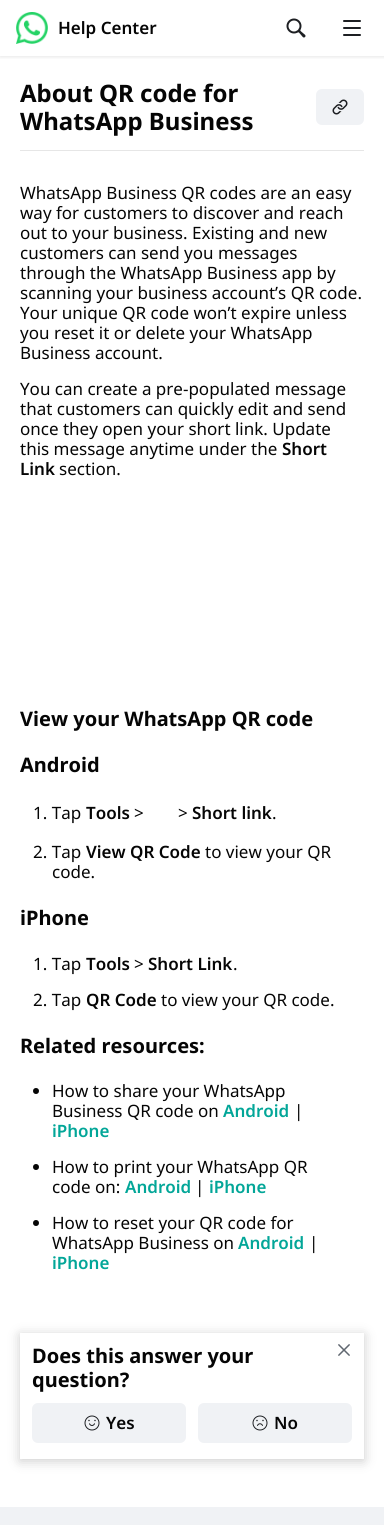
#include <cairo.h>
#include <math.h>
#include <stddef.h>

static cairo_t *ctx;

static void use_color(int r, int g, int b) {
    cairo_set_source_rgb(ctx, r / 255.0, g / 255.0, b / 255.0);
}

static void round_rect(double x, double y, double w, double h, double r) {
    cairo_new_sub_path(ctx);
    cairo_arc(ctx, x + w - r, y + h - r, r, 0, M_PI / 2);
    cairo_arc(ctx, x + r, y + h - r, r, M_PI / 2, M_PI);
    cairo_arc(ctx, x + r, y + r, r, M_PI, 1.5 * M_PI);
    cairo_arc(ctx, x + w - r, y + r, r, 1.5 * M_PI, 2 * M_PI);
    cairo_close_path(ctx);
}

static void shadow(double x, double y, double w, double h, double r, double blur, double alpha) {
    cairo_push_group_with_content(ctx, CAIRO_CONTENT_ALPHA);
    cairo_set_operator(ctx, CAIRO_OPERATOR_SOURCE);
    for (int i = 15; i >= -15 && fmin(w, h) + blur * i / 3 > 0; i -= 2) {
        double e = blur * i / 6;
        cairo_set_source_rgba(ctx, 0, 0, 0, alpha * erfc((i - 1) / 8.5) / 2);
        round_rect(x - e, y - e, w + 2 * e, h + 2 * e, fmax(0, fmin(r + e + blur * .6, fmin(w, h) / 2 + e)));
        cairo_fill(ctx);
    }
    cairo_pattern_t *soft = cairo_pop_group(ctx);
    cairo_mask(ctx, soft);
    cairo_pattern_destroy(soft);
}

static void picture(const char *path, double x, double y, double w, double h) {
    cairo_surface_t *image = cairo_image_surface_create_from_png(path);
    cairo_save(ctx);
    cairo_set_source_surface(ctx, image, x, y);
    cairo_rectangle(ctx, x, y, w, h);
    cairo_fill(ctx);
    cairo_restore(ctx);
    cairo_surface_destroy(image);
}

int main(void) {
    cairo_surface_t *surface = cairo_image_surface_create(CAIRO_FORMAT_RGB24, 384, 1525);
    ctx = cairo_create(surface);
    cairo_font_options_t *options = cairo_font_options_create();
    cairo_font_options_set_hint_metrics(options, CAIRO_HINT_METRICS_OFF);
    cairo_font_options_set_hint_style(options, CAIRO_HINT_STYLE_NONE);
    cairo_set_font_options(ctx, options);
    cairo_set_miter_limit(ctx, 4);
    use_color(255, 255, 255);
    cairo_paint(ctx);
    cairo_save(ctx);
    cairo_rectangle(ctx, 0, 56, 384, 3);
    cairo_clip(ctx);
    use_color(0, 0, 0);
    shadow(0, 1, 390, 56, 0, 2, 0.1);
    cairo_restore(ctx);
    picture("img1.png", 16, 12, 32, 32);
    cairo_select_font_face(ctx, "Noto Sans SemiBold", CAIRO_FONT_SLANT_NORMAL, CAIRO_FONT_WEIGHT_NORMAL);
    cairo_set_font_size(ctx, 17);
    use_color(5, 5, 5);
    cairo_move_to(ctx, 58, 34);
    cairo_show_text(ctx, "Help Center");
    picture("img2.png", 286, 18, 20, 20);
    picture("img3.png", 343, 20, 18, 16);
    use_color(230, 230, 230);
    cairo_rectangle(ctx, 20, 150, 344, 1);
    cairo_fill(ctx);
    cairo_select_font_face(ctx, "Noto Sans", CAIRO_FONT_SLANT_NORMAL, CAIRO_FONT_WEIGHT_BOLD);
    cairo_set_font_size(ctx, 24);
    use_color(5, 5, 5);
    cairo_move_to(ctx, 20, 102);
    cairo_show_text(ctx, "About QR code for");
    cairo_move_to(ctx, 20, 130);
    cairo_show_text(ctx, "WhatsApp Business");
    use_color(240, 242, 245);
    round_rect(316, 89, 48, 36, 6);
    cairo_fill(ctx);
    picture("img4.png", 332, 99, 16, 16);
    cairo_select_font_face(ctx, "Noto Sans", CAIRO_FONT_SLANT_NORMAL, CAIRO_FONT_WEIGHT_NORMAL);
    cairo_set_font_size(ctx, 17);
    use_color(5, 5, 5);
    cairo_move_to(ctx, 20, 199);
    cairo_show_text(ctx, "WhatsApp Business QR codes are an easy");
    cairo_move_to(ctx, 20, 219);
    cairo_show_text(ctx, "way for customers to discover and reach");
    cairo_move_to(ctx, 20, 239);
    cairo_show_text(ctx, "out to your business. Existing and new");
    cairo_move_to(ctx, 20, 259);
    cairo_show_text(ctx, "customers can send you messages");
    cairo_move_to(ctx, 20, 279);
    cairo_show_text(ctx, "through the WhatsApp Business app by");
    cairo_move_to(ctx, 20, 299);
    cairo_show_text(ctx, "scanning your business account’s QR code.");
    cairo_move_to(ctx, 20, 319);
    cairo_show_text(ctx, "Your unique QR code won’t expire unless");
    cairo_move_to(ctx, 20, 339);
    cairo_show_text(ctx, "you reset it or delete your WhatsApp");
    cairo_move_to(ctx, 20, 359);
    cairo_show_text(ctx, "Business account.");
    cairo_move_to(ctx, 20, 395);
    cairo_show_text(ctx, "You can create a pre-populated message");
    cairo_move_to(ctx, 20, 415);
    cairo_show_text(ctx, "that customers can quickly edit and send");
    cairo_move_to(ctx, 20, 435);
    cairo_show_text(ctx, "once they open your short link. Update");
    cairo_move_to(ctx, 20, 455);
    cairo_show_text(ctx, "this message anytime under the");
    cairo_select_font_face(ctx, "Noto Sans SemiBold", CAIRO_FONT_SLANT_NORMAL, CAIRO_FONT_WEIGHT_NORMAL);
    cairo_move_to(ctx, 282, 455);
    cairo_show_text(ctx, "Short");
    cairo_move_to(ctx, 20, 475);
    cairo_show_text(ctx, "Link");
    cairo_select_font_face(ctx, "Noto Sans", CAIRO_FONT_SLANT_NORMAL, CAIRO_FONT_WEIGHT_NORMAL);
    cairo_move_to(ctx, 59, 475);
    cairo_show_text(ctx, "section.");
    cairo_select_font_face(ctx, "Noto Sans", CAIRO_FONT_SLANT_NORMAL, CAIRO_FONT_WEIGHT_BOLD);
    cairo_set_font_size(ctx, 20);
    cairo_move_to(ctx, 20, 726);
    cairo_show_text(ctx, "View your WhatsApp QR code");
    cairo_move_to(ctx, 20, 772);
    cairo_show_text(ctx, "Android");
    cairo_select_font_face(ctx, "Noto Sans", CAIRO_FONT_SLANT_NORMAL, CAIRO_FONT_WEIGHT_NORMAL);
    cairo_set_font_size(ctx, 17);
    cairo_move_to(ctx, 33, 819);
    cairo_show_text(ctx, "1. Tap");
    cairo_select_font_face(ctx, "Noto Sans SemiBold", CAIRO_FONT_SLANT_NORMAL, CAIRO_FONT_WEIGHT_NORMAL);
    cairo_move_to(ctx, 86, 819);
    cairo_show_text(ctx, "Tools");
    cairo_select_font_face(ctx, "Noto Sans", CAIRO_FONT_SLANT_NORMAL, CAIRO_FONT_WEIGHT_NORMAL);
    cairo_move_to(ctx, 134, 819);
    cairo_show_text(ctx, ">");
    cairo_move_to(ctx, 178, 819);
    cairo_show_text(ctx, ">");
    cairo_select_font_face(ctx, "Noto Sans SemiBold", CAIRO_FONT_SLANT_NORMAL, CAIRO_FONT_WEIGHT_NORMAL);
    cairo_move_to(ctx, 192, 819);
    cairo_show_text(ctx, "Short link");
    cairo_select_font_face(ctx, "Noto Sans", CAIRO_FONT_SLANT_NORMAL, CAIRO_FONT_WEIGHT_NORMAL);
    cairo_move_to(ctx, 272, 819);
    cairo_show_text(ctx, ".");
    cairo_move_to(ctx, 33, 858);
    cairo_show_text(ctx, "2. Tap");
    cairo_select_font_face(ctx, "Noto Sans SemiBold", CAIRO_FONT_SLANT_NORMAL, CAIRO_FONT_WEIGHT_NORMAL);
    cairo_move_to(ctx, 86, 858);
    cairo_show_text(ctx, "View QR Code");
    cairo_select_font_face(ctx, "Noto Sans", CAIRO_FONT_SLANT_NORMAL, CAIRO_FONT_WEIGHT_NORMAL);
    cairo_move_to(ctx, 205, 858);
    cairo_show_text(ctx, "to view your QR");
    cairo_move_to(ctx, 52, 878);
    cairo_show_text(ctx, "code.");
    cairo_select_font_face(ctx, "Noto Sans", CAIRO_FONT_SLANT_NORMAL, CAIRO_FONT_WEIGHT_BOLD);
    cairo_set_font_size(ctx, 20);
    cairo_move_to(ctx, 20, 925);
    cairo_show_text(ctx, "iPhone");
    cairo_select_font_face(ctx, "Noto Sans", CAIRO_FONT_SLANT_NORMAL, CAIRO_FONT_WEIGHT_NORMAL);
    cairo_set_font_size(ctx, 17);
    cairo_move_to(ctx, 33, 970);
    cairo_show_text(ctx, "1. Tap");
    cairo_select_font_face(ctx, "Noto Sans SemiBold", CAIRO_FONT_SLANT_NORMAL, CAIRO_FONT_WEIGHT_NORMAL);
    cairo_move_to(ctx, 86, 970);
    cairo_show_text(ctx, "Tools");
    cairo_select_font_face(ctx, "Noto Sans", CAIRO_FONT_SLANT_NORMAL, CAIRO_FONT_WEIGHT_NORMAL);
    cairo_move_to(ctx, 134, 970);
    cairo_show_text(ctx, ">");
    cairo_select_font_face(ctx, "Noto Sans SemiBold", CAIRO_FONT_SLANT_NORMAL, CAIRO_FONT_WEIGHT_NORMAL);
    cairo_move_to(ctx, 148, 970);
    cairo_show_text(ctx, "Short Link");
    cairo_select_font_face(ctx, "Noto Sans", CAIRO_FONT_SLANT_NORMAL, CAIRO_FONT_WEIGHT_NORMAL);
    cairo_move_to(ctx, 233, 970);
    cairo_show_text(ctx, ".");
    cairo_move_to(ctx, 33, 1006);
    cairo_show_text(ctx, "2. Tap");
    cairo_select_font_face(ctx, "Noto Sans SemiBold", CAIRO_FONT_SLANT_NORMAL, CAIRO_FONT_WEIGHT_NORMAL);
    cairo_move_to(ctx, 86, 1006);
    cairo_show_text(ctx, "QR Code");
    cairo_select_font_face(ctx, "Noto Sans", CAIRO_FONT_SLANT_NORMAL, CAIRO_FONT_WEIGHT_NORMAL);
    cairo_move_to(ctx, 161, 1006);
    cairo_show_text(ctx, "to view your QR code.");
    cairo_select_font_face(ctx, "Noto Sans", CAIRO_FONT_SLANT_NORMAL, CAIRO_FONT_WEIGHT_BOLD);
    cairo_set_font_size(ctx, 20);
    cairo_move_to(ctx, 20, 1053);
    cairo_show_text(ctx, "Related resources:");
    cairo_new_path(ctx);
    cairo_arc(ctx, 36, 1091, 3, 0, 2 * M_PI);
    cairo_fill(ctx);
    cairo_select_font_face(ctx, "Noto Sans", CAIRO_FONT_SLANT_NORMAL, CAIRO_FONT_WEIGHT_NORMAL);
    cairo_set_font_size(ctx, 17);
    cairo_move_to(ctx, 52, 1097);
    cairo_show_text(ctx, "How to share your WhatsApp");
    cairo_move_to(ctx, 52, 1117);
    cairo_show_text(ctx, "Business QR code on");
    cairo_select_font_face(ctx, "Noto Sans SemiBold", CAIRO_FONT_SLANT_NORMAL, CAIRO_FONT_WEIGHT_NORMAL);
    use_color(2, 166, 152);
    cairo_move_to(ctx, 223, 1117);
    cairo_show_text(ctx, "Android");
    cairo_select_font_face(ctx, "Noto Sans", CAIRO_FONT_SLANT_NORMAL, CAIRO_FONT_WEIGHT_NORMAL);
    use_color(5, 5, 5);
    cairo_move_to(ctx, 294, 1117);
    cairo_show_text(ctx, "|");
    cairo_select_font_face(ctx, "Noto Sans SemiBold", CAIRO_FONT_SLANT_NORMAL, CAIRO_FONT_WEIGHT_NORMAL);
    use_color(2, 166, 152);
    cairo_move_to(ctx, 52, 1137);
    cairo_show_text(ctx, "iPhone");
    use_color(5, 5, 5);
    cairo_new_path(ctx);
    cairo_arc(ctx, 36, 1167, 3, 0, 2 * M_PI);
    cairo_fill(ctx);
    cairo_select_font_face(ctx, "Noto Sans", CAIRO_FONT_SLANT_NORMAL, CAIRO_FONT_WEIGHT_NORMAL);
    cairo_move_to(ctx, 52, 1173);
    cairo_show_text(ctx, "How to print your WhatsApp QR");
    cairo_move_to(ctx, 52, 1193);
    cairo_show_text(ctx, "code on:");
    cairo_select_font_face(ctx, "Noto Sans SemiBold", CAIRO_FONT_SLANT_NORMAL, CAIRO_FONT_WEIGHT_NORMAL);
    use_color(2, 166, 152);
    cairo_move_to(ctx, 125, 1193);
    cairo_show_text(ctx, "Android");
    cairo_select_font_face(ctx, "Noto Sans", CAIRO_FONT_SLANT_NORMAL, CAIRO_FONT_WEIGHT_NORMAL);
    use_color(5, 5, 5);
    cairo_move_to(ctx, 195, 1193);
    cairo_show_text(ctx, "|");
    cairo_select_font_face(ctx, "Noto Sans SemiBold", CAIRO_FONT_SLANT_NORMAL, CAIRO_FONT_WEIGHT_NORMAL);
    use_color(2, 166, 152);
    cairo_move_to(ctx, 209, 1193);
    cairo_show_text(ctx, "iPhone");
    use_color(5, 5, 5);
    cairo_new_path(ctx);
    cairo_arc(ctx, 36, 1223, 3, 0, 2 * M_PI);
    cairo_fill(ctx);
    cairo_select_font_face(ctx, "Noto Sans", CAIRO_FONT_SLANT_NORMAL, CAIRO_FONT_WEIGHT_NORMAL);
    cairo_move_to(ctx, 52, 1229);
    cairo_show_text(ctx, "How to reset your QR code for");
    cairo_move_to(ctx, 52, 1249);
    cairo_show_text(ctx, "WhatsApp Business on");
    cairo_select_font_face(ctx, "Noto Sans SemiBold", CAIRO_FONT_SLANT_NORMAL, CAIRO_FONT_WEIGHT_NORMAL);
    use_color(2, 166, 152);
    cairo_move_to(ctx, 238, 1249);
    cairo_show_text(ctx, "Android");
    cairo_select_font_face(ctx, "Noto Sans", CAIRO_FONT_SLANT_NORMAL, CAIRO_FONT_WEIGHT_NORMAL);
    use_color(5, 5, 5);
    cairo_move_to(ctx, 309, 1249);
    cairo_show_text(ctx, "|");
    cairo_select_font_face(ctx, "Noto Sans SemiBold", CAIRO_FONT_SLANT_NORMAL, CAIRO_FONT_WEIGHT_NORMAL);
    use_color(2, 166, 152);
    cairo_move_to(ctx, 52, 1269);
    cairo_show_text(ctx, "iPhone");
    cairo_save(ctx);
    cairo_set_fill_rule(ctx, CAIRO_FILL_RULE_EVEN_ODD);
    cairo_new_path(ctx);
    cairo_move_to(ctx, 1, 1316);
    cairo_line_to(ctx, 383, 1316);
    cairo_line_to(ctx, 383, 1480);
    cairo_line_to(ctx, 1, 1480);
    cairo_close_path(ctx);
    cairo_move_to(ctx, 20, 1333);
    cairo_line_to(ctx, 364, 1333);
    cairo_line_to(ctx, 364, 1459);
    cairo_line_to(ctx, 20, 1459);
    cairo_close_path(ctx);
    cairo_clip(ctx);
    use_color(0, 0, 0);
    shadow(20, 1335, 344, 126, 0, 6, 0.2);
    cairo_restore(ctx);
    cairo_select_font_face(ctx, "Noto Sans", CAIRO_FONT_SLANT_NORMAL, CAIRO_FONT_WEIGHT_BOLD);
    cairo_set_font_size(ctx, 20);
    use_color(5, 5, 5);
    cairo_move_to(ctx, 32, 1363);
    cairo_show_text(ctx, "Does this answer your");
    cairo_move_to(ctx, 32, 1387);
    cairo_show_text(ctx, "question?");
    picture("img5.png", 338, 1344, 12, 12);
    use_color(240, 242, 245);
    round_rect(32, 1403, 154, 40, 6);
    cairo_fill(ctx);
    picture("img6.png", 84, 1415, 16, 16);
    cairo_select_font_face(ctx, "Noto Sans SemiBold", CAIRO_FONT_SLANT_NORMAL, CAIRO_FONT_WEIGHT_NORMAL);
    cairo_set_font_size(ctx, 17);
    use_color(5, 5, 5);
    cairo_move_to(ctx, 106, 1429);
    cairo_show_text(ctx, "Yes");
    use_color(240, 242, 245);
    round_rect(198, 1403, 154, 40, 6);
    cairo_fill(ctx);
    picture("img7.png", 252, 1415, 16, 16);
    use_color(5, 5, 5);
    cairo_move_to(ctx, 274, 1429);
    cairo_show_text(ctx, "No");
    use_color(240, 242, 245);
    cairo_rectangle(ctx, 0, 1507, 384, 18);
    cairo_fill(ctx);
    cairo_surface_write_to_png(surface, "result.png");
    cairo_font_options_destroy(options);
    cairo_destroy(ctx);
    cairo_surface_destroy(surface);
    return 0;
}
